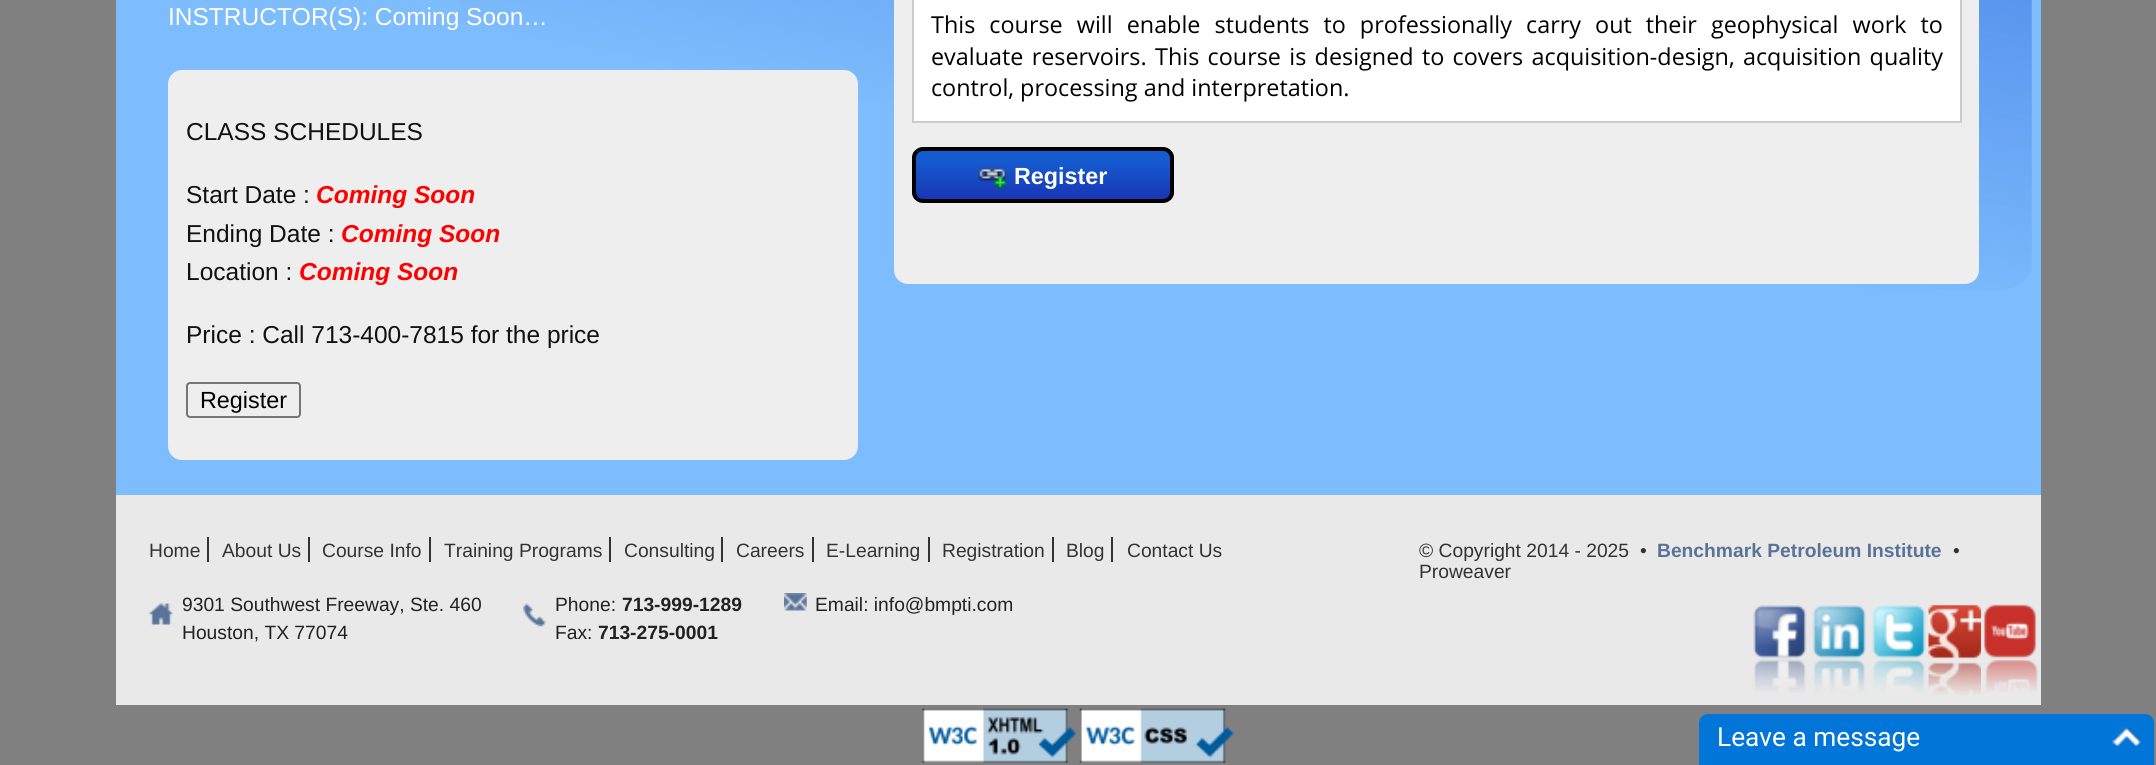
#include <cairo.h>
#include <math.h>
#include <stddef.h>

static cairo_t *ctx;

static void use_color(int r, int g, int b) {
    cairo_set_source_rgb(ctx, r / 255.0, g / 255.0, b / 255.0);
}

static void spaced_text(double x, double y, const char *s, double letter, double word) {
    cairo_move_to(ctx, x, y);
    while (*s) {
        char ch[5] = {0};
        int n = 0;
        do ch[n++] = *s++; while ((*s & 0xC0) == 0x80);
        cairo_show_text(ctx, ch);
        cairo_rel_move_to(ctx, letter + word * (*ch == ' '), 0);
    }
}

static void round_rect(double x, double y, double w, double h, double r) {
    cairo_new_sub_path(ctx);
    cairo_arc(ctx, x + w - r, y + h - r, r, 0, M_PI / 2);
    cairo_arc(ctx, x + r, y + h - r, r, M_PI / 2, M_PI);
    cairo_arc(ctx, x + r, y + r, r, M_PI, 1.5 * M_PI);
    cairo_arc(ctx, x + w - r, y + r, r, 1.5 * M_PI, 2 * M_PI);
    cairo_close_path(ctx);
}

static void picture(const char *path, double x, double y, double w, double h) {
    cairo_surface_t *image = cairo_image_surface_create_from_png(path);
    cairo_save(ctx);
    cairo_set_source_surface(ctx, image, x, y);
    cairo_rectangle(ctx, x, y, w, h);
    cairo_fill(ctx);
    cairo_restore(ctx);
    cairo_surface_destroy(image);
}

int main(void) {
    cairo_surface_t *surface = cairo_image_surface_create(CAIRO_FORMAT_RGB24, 2156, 765);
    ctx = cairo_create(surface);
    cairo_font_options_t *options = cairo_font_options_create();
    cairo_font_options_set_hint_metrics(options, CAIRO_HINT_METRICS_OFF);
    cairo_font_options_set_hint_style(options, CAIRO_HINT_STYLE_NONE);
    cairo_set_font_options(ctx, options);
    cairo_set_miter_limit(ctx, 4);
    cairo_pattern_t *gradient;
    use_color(128, 128, 128);
    cairo_paint(ctx);
    use_color(125, 188, 253);
    cairo_rectangle(ctx, 116, 0, 1925, 495);
    cairo_fill(ctx);
    picture("img1.png", 459, 0, 1573, 290);
    cairo_select_font_face(ctx, "Liberation Sans", CAIRO_FONT_SLANT_NORMAL, CAIRO_FONT_WEIGHT_NORMAL);
    cairo_set_font_size(ctx, 24.5);
    use_color(255, 255, 255);
    cairo_move_to(ctx, 168, 25);
    cairo_show_text(ctx, "INSTRUCTOR(S): Coming Soon…");
    use_color(238, 238, 238);
    round_rect(168, 70, 690, 390, 14);
    cairo_fill(ctx);
    use_color(17, 17, 17);
    cairo_move_to(ctx, 186, 140);
    cairo_show_text(ctx, "CLASS SCHEDULES");
    cairo_move_to(ctx, 186, 203);
    cairo_show_text(ctx, "Start Date :");
    cairo_select_font_face(ctx, "Liberation Sans", CAIRO_FONT_SLANT_ITALIC, CAIRO_FONT_WEIGHT_BOLD);
    use_color(255, 0, 0);
    cairo_move_to(ctx, 316, 203);
    cairo_show_text(ctx, "Coming Soon");
    cairo_select_font_face(ctx, "Liberation Sans", CAIRO_FONT_SLANT_NORMAL, CAIRO_FONT_WEIGHT_NORMAL);
    use_color(17, 17, 17);
    cairo_move_to(ctx, 186, 242);
    cairo_show_text(ctx, "Ending Date :");
    cairo_select_font_face(ctx, "Liberation Sans", CAIRO_FONT_SLANT_ITALIC, CAIRO_FONT_WEIGHT_BOLD);
    use_color(255, 0, 0);
    cairo_move_to(ctx, 341, 242);
    cairo_show_text(ctx, "Coming Soon");
    cairo_select_font_face(ctx, "Liberation Sans", CAIRO_FONT_SLANT_NORMAL, CAIRO_FONT_WEIGHT_NORMAL);
    use_color(17, 17, 17);
    cairo_move_to(ctx, 186, 280);
    cairo_show_text(ctx, "Location :");
    cairo_select_font_face(ctx, "Liberation Sans", CAIRO_FONT_SLANT_ITALIC, CAIRO_FONT_WEIGHT_BOLD);
    use_color(255, 0, 0);
    cairo_move_to(ctx, 299, 280);
    cairo_show_text(ctx, "Coming Soon");
    cairo_select_font_face(ctx, "Liberation Sans", CAIRO_FONT_SLANT_NORMAL, CAIRO_FONT_WEIGHT_NORMAL);
    use_color(17, 17, 17);
    cairo_move_to(ctx, 186, 343);
    cairo_show_text(ctx, "Price : Call 713-400-7815 for the price");
    round_rect(187, 383, 113, 34, 3);
    use_color(118, 118, 118);
    cairo_stroke(ctx);
    cairo_set_font_size(ctx, 23.35);
    use_color(0, 0, 0);
    cairo_move_to(ctx, 200, 408);
    cairo_show_text(ctx, "Register");
    use_color(238, 238, 238);
    round_rect(894, -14, 1085, 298, 14);
    cairo_fill(ctx);
    use_color(255, 255, 255);
    cairo_rectangle(ctx, 913, -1, 1048, 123);
    cairo_fill_preserve(ctx);
    use_color(204, 204, 204);
    cairo_stroke(ctx);
    cairo_select_font_face(ctx, "Open Sans", CAIRO_FONT_SLANT_NORMAL, CAIRO_FONT_WEIGHT_NORMAL);
    use_color(0, 0, 0);
    spaced_text(931, 33, "This course will enable students to professionally carry out their geophysical work to", 0, 8);
    spaced_text(931, 65, "evaluate reservoirs. This course is designed to covers acquisition-design, acquisition quality", 0, 2.25);
    cairo_move_to(ctx, 931, 96);
    cairo_show_text(ctx, "control, processing and interpretation.");
    cairo_save(ctx);
    round_rect(912, 147, 262, 56, 11);
    cairo_clip(ctx);
    gradient = cairo_pattern_create_linear(1043, 150, 1043, 200);
    cairo_pattern_add_color_stop_rgba(gradient, 0.22, 0.082, 0.357, 0.812, 1);
    cairo_pattern_add_color_stop_rgba(gradient, 1, 0.098, 0.208, 0.71, 1);
    cairo_set_source(ctx, gradient);
    cairo_pattern_destroy(gradient);
    cairo_rectangle(ctx, 912, 151, 262, 49);
    cairo_fill(ctx);
    cairo_restore(ctx);
    round_rect(914, 149, 258, 52, 9);
    cairo_set_line_width(ctx, 4);
    cairo_stroke(ctx);
    picture("img2.png", 978, 167, 29, 22);
    cairo_select_font_face(ctx, "Liberation Sans", CAIRO_FONT_SLANT_NORMAL, CAIRO_FONT_WEIGHT_BOLD);
    use_color(255, 255, 255);
    cairo_move_to(ctx, 1014, 184);
    cairo_show_text(ctx, "Register");
    use_color(233, 233, 233);
    cairo_rectangle(ctx, 116, 495, 1925, 210);
    cairo_fill(ctx);
    cairo_select_font_face(ctx, "Liberation Sans", CAIRO_FONT_SLANT_NORMAL, CAIRO_FONT_WEIGHT_NORMAL);
    cairo_set_font_size(ctx, 19.25);
    use_color(51, 51, 51);
    cairo_move_to(ctx, 149, 557);
    cairo_show_text(ctx, "Home");
    cairo_rectangle(ctx, 207, 537, 2, 25);
    cairo_fill(ctx);
    cairo_move_to(ctx, 222, 557);
    cairo_show_text(ctx, "About Us");
    cairo_rectangle(ctx, 308, 537, 2, 25);
    cairo_fill(ctx);
    cairo_move_to(ctx, 322, 557);
    cairo_show_text(ctx, "Course Info");
    cairo_rectangle(ctx, 429, 537, 2, 25);
    cairo_fill(ctx);
    cairo_move_to(ctx, 444, 557);
    cairo_show_text(ctx, "Training Programs");
    cairo_rectangle(ctx, 609, 537, 2, 25);
    cairo_fill(ctx);
    cairo_move_to(ctx, 624, 557);
    cairo_show_text(ctx, "Consulting");
    cairo_rectangle(ctx, 721, 537, 2, 25);
    cairo_fill(ctx);
    cairo_move_to(ctx, 736, 557);
    cairo_show_text(ctx, "Careers");
    cairo_rectangle(ctx, 812, 537, 2, 25);
    cairo_fill(ctx);
    cairo_move_to(ctx, 826, 557);
    cairo_show_text(ctx, "E-Learning");
    cairo_rectangle(ctx, 928, 537, 2, 25);
    cairo_fill(ctx);
    cairo_move_to(ctx, 942, 557);
    cairo_show_text(ctx, "Registration");
    cairo_rectangle(ctx, 1052, 537, 2, 25);
    cairo_fill(ctx);
    cairo_move_to(ctx, 1066, 557);
    cairo_show_text(ctx, "Blog");
    cairo_rectangle(ctx, 1111, 537, 2, 25);
    cairo_fill(ctx);
    cairo_move_to(ctx, 1127, 557);
    cairo_show_text(ctx, "Contact Us");
    cairo_move_to(ctx, 1419, 557);
    cairo_show_text(ctx, "© Copyright 2014 - 2025");
    cairo_move_to(ctx, 1640, 557);
    cairo_show_text(ctx, "•");
    cairo_select_font_face(ctx, "Liberation Sans", CAIRO_FONT_SLANT_NORMAL, CAIRO_FONT_WEIGHT_BOLD);
    use_color(89, 115, 152);
    cairo_move_to(ctx, 1657, 557);
    cairo_show_text(ctx, "Benchmark Petroleum Institute");
    cairo_select_font_face(ctx, "Liberation Sans", CAIRO_FONT_SLANT_NORMAL, CAIRO_FONT_WEIGHT_NORMAL);
    use_color(51, 51, 51);
    cairo_move_to(ctx, 1953, 557);
    cairo_show_text(ctx, "•");
    cairo_move_to(ctx, 1419, 578);
    cairo_show_text(ctx, "Proweaver");
    picture("img3.png", 1753, 605, 54, 88);
    picture("img4.png", 1812, 605, 54, 88);
    picture("img5.png", 1872, 605, 54, 88);
    picture("img6.png", 1928, 605, 53, 90);
    picture("img7.png", 1983, 604, 55, 88);
    picture("img8.png", 148, 603, 26, 22);
    use_color(34, 34, 34);
    cairo_move_to(ctx, 182, 611);
    cairo_show_text(ctx, "9301 Southwest Freeway, Ste. 460");
    cairo_move_to(ctx, 182, 639);
    cairo_show_text(ctx, "Houston, TX 77074");
    picture("img9.png", 523, 603, 23, 24);
    cairo_move_to(ctx, 555, 611);
    cairo_show_text(ctx, "Phone:");
    cairo_select_font_face(ctx, "Liberation Sans", CAIRO_FONT_SLANT_NORMAL, CAIRO_FONT_WEIGHT_BOLD);
    cairo_move_to(ctx, 622, 611);
    cairo_show_text(ctx, "713-999-1289");
    cairo_select_font_face(ctx, "Liberation Sans", CAIRO_FONT_SLANT_NORMAL, CAIRO_FONT_WEIGHT_NORMAL);
    cairo_move_to(ctx, 555, 639);
    cairo_show_text(ctx, "Fax:");
    cairo_select_font_face(ctx, "Liberation Sans", CAIRO_FONT_SLANT_NORMAL, CAIRO_FONT_WEIGHT_BOLD);
    cairo_move_to(ctx, 598, 639);
    cairo_show_text(ctx, "713-275-0001");
    picture("img10.png", 784, 593, 23, 18);
    cairo_select_font_face(ctx, "Liberation Sans", CAIRO_FONT_SLANT_NORMAL, CAIRO_FONT_WEIGHT_NORMAL);
    cairo_move_to(ctx, 815, 611);
    cairo_show_text(ctx, "Email: info@bmpti.com");
    picture("img11.png", 922, 708, 155, 55);
    picture("img12.png", 1079, 708, 155, 55);
    use_color(2, 117, 216);
    cairo_new_path(ctx);
    cairo_move_to(ctx, 1708, 714);
    cairo_line_to(ctx, 2145, 714);
    cairo_curve_to(ctx, 2150, 714, 2154, 718, 2154, 723);
    cairo_line_to(ctx, 2154, 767);
    cairo_line_to(ctx, 1699, 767);
    cairo_line_to(ctx, 1699, 723);
    cairo_curve_to(ctx, 1699, 718, 1703, 714, 1708, 714);
    cairo_close_path(ctx);
    cairo_fill(ctx);
    cairo_select_font_face(ctx, "Roboto", CAIRO_FONT_SLANT_NORMAL, CAIRO_FONT_WEIGHT_NORMAL);
    cairo_set_font_size(ctx, 26.25);
    use_color(255, 255, 255);
    cairo_move_to(ctx, 1717, 746);
    cairo_show_text(ctx, "Leave a message");
    picture("img13.png", 2112, 726, 29, 20);
    cairo_surface_write_to_png(surface, "result.png");
    cairo_font_options_destroy(options);
    cairo_destroy(ctx);
    cairo_surface_destroy(surface);
    return 0;
}
